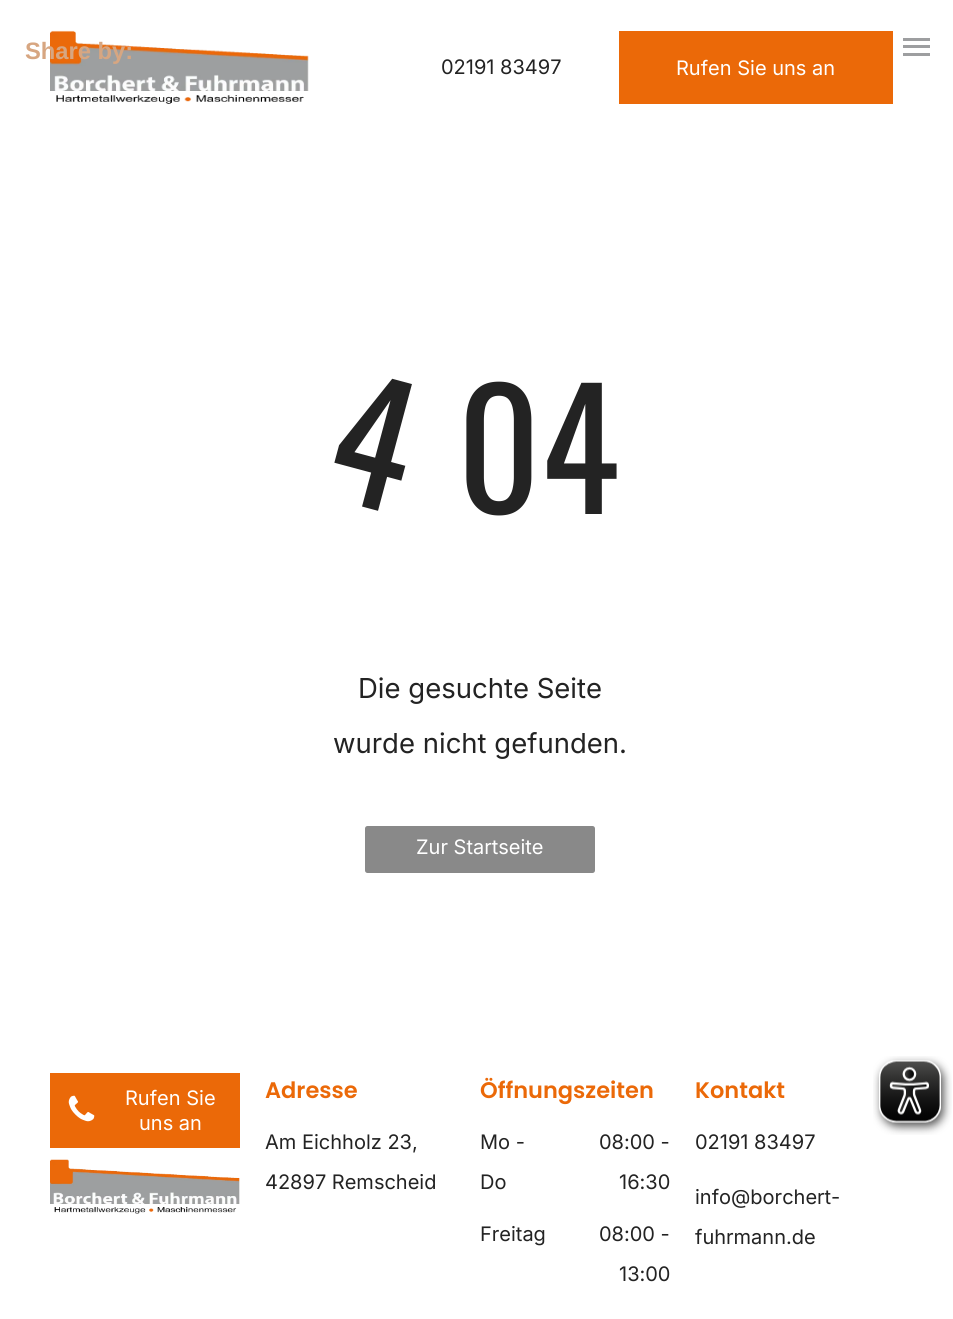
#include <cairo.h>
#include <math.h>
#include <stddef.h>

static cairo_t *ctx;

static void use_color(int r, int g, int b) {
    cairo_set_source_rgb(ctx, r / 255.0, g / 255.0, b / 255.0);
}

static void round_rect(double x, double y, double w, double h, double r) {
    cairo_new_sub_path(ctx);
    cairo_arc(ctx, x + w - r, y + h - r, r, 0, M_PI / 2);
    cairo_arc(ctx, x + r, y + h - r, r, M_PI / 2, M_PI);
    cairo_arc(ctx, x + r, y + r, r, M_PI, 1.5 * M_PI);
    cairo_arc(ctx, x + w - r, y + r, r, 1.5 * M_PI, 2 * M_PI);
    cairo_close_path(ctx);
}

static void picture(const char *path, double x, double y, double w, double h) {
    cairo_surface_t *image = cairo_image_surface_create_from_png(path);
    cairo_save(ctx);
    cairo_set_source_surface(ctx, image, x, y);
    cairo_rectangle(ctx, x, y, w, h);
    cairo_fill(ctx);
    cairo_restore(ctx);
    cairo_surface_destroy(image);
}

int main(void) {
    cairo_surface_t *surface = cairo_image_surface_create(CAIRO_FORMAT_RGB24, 953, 1319);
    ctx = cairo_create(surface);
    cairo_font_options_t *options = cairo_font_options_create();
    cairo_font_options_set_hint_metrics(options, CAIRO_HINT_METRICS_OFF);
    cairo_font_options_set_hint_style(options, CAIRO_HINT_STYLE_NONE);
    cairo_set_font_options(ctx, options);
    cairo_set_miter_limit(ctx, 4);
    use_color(255, 255, 255);
    cairo_paint(ctx);
    picture("img1.png", 50, 30, 259, 74);
    cairo_select_font_face(ctx, "Liberation Sans", CAIRO_FONT_SLANT_NORMAL, CAIRO_FONT_WEIGHT_BOLD);
    cairo_set_font_size(ctx, 23.75);
    use_color(215, 166, 129);
    cairo_move_to(ctx, 25, 59);
    cairo_show_text(ctx, "Share by:");
    use_color(157, 158, 160);
    cairo_rectangle(ctx, 903, 38, 27, 3);
    cairo_fill(ctx);
    cairo_rectangle(ctx, 903, 45, 27, 3);
    cairo_fill(ctx);
    cairo_rectangle(ctx, 903, 53, 27, 3);
    cairo_fill(ctx);
    cairo_select_font_face(ctx, "Inter", CAIRO_FONT_SLANT_NORMAL, CAIRO_FONT_WEIGHT_NORMAL);
    cairo_set_font_size(ctx, 20);
    use_color(35, 35, 35);
    cairo_move_to(ctx, 441, 74);
    cairo_show_text(ctx, "02191 83497");
    use_color(235, 105, 8);
    cairo_rectangle(ctx, 619, 31, 274, 73);
    cairo_fill(ctx);
    use_color(255, 255, 255);
    cairo_move_to(ctx, 676, 75);
    cairo_show_text(ctx, "Rufen Sie uns an");
    cairo_select_font_face(ctx, "Oswald", CAIRO_FONT_SLANT_NORMAL, CAIRO_FONT_WEIGHT_NORMAL);
    cairo_set_font_size(ctx, 162);
    use_color(35, 35, 35);
    cairo_save(ctx);
    cairo_translate(ctx, 319, 495);
    cairo_rotate(ctx, 15 * M_PI / 180);
    cairo_move_to(ctx, 0, 0);
    cairo_show_text(ctx, "4");
    cairo_restore(ctx);
    cairo_move_to(ctx, 457, 514);
    cairo_show_text(ctx, "04");
    cairo_select_font_face(ctx, "Inter", CAIRO_FONT_SLANT_NORMAL, CAIRO_FONT_WEIGHT_NORMAL);
    cairo_set_font_size(ctx, 27.5);
    cairo_move_to(ctx, 358, 698);
    cairo_show_text(ctx, "Die gesuchte Seite");
    cairo_move_to(ctx, 333, 753);
    cairo_show_text(ctx, "wurde nicht gefunden.");
    use_color(137, 137, 137);
    round_rect(365, 826, 230, 47, 2.5);
    cairo_fill(ctx);
    cairo_set_font_size(ctx, 20);
    use_color(255, 255, 255);
    cairo_move_to(ctx, 416, 854);
    cairo_show_text(ctx, "Zur Startseite");
    use_color(235, 105, 8);
    cairo_rectangle(ctx, 50, 1073, 190, 75);
    cairo_fill(ctx);
    picture("img2.png", 68, 1095, 27, 27);
    use_color(255, 255, 255);
    cairo_move_to(ctx, 125, 1105);
    cairo_show_text(ctx, "Rufen Sie");
    cairo_move_to(ctx, 139, 1130);
    cairo_show_text(ctx, "uns an");
    picture("img3.png", 50, 1159, 190, 55);
    cairo_select_font_face(ctx, "Poppins SemiBold", CAIRO_FONT_SLANT_NORMAL, CAIRO_FONT_WEIGHT_NORMAL);
    cairo_set_font_size(ctx, 22.5);
    use_color(235, 105, 8);
    cairo_move_to(ctx, 265, 1098);
    cairo_show_text(ctx, "Adresse");
    cairo_select_font_face(ctx, "Inter", CAIRO_FONT_SLANT_NORMAL, CAIRO_FONT_WEIGHT_NORMAL);
    cairo_set_font_size(ctx, 20);
    use_color(35, 35, 35);
    cairo_move_to(ctx, 265, 1149);
    cairo_show_text(ctx, "Am Eichholz 23,");
    cairo_move_to(ctx, 265, 1189);
    cairo_show_text(ctx, "42897 Remscheid");
    cairo_select_font_face(ctx, "Poppins SemiBold", CAIRO_FONT_SLANT_NORMAL, CAIRO_FONT_WEIGHT_NORMAL);
    cairo_set_font_size(ctx, 22.5);
    use_color(235, 105, 8);
    cairo_move_to(ctx, 480, 1098);
    cairo_show_text(ctx, "Öffnungszeiten");
    cairo_select_font_face(ctx, "Inter", CAIRO_FONT_SLANT_NORMAL, CAIRO_FONT_WEIGHT_NORMAL);
    cairo_set_font_size(ctx, 20);
    use_color(35, 35, 35);
    cairo_move_to(ctx, 480, 1149);
    cairo_show_text(ctx, "Mo -");
    cairo_move_to(ctx, 480, 1189);
    cairo_show_text(ctx, "Do");
    cairo_move_to(ctx, 599, 1149);
    cairo_show_text(ctx, "08:00 -");
    cairo_move_to(ctx, 619, 1189);
    cairo_show_text(ctx, "16:30");
    cairo_move_to(ctx, 480, 1241);
    cairo_show_text(ctx, "Freitag");
    cairo_move_to(ctx, 599, 1241);
    cairo_show_text(ctx, "08:00 -");
    cairo_move_to(ctx, 619, 1281);
    cairo_show_text(ctx, "13:00");
    cairo_select_font_face(ctx, "Poppins SemiBold", CAIRO_FONT_SLANT_NORMAL, CAIRO_FONT_WEIGHT_NORMAL);
    cairo_set_font_size(ctx, 22.5);
    use_color(235, 105, 8);
    cairo_move_to(ctx, 695, 1098);
    cairo_show_text(ctx, "Kontakt");
    cairo_select_font_face(ctx, "Inter", CAIRO_FONT_SLANT_NORMAL, CAIRO_FONT_WEIGHT_NORMAL);
    cairo_set_font_size(ctx, 20);
    use_color(35, 35, 35);
    cairo_move_to(ctx, 695, 1149);
    cairo_show_text(ctx, "02191 83497");
    cairo_move_to(ctx, 695, 1204);
    cairo_show_text(ctx, "info@borchert-");
    cairo_move_to(ctx, 695, 1244);
    cairo_show_text(ctx, "fuhrmann.de");
    picture("img4.png", 873, 1056, 79, 79);
    cairo_surface_write_to_png(surface, "result.png");
    cairo_font_options_destroy(options);
    cairo_destroy(ctx);
    cairo_surface_destroy(surface);
    return 0;
}
